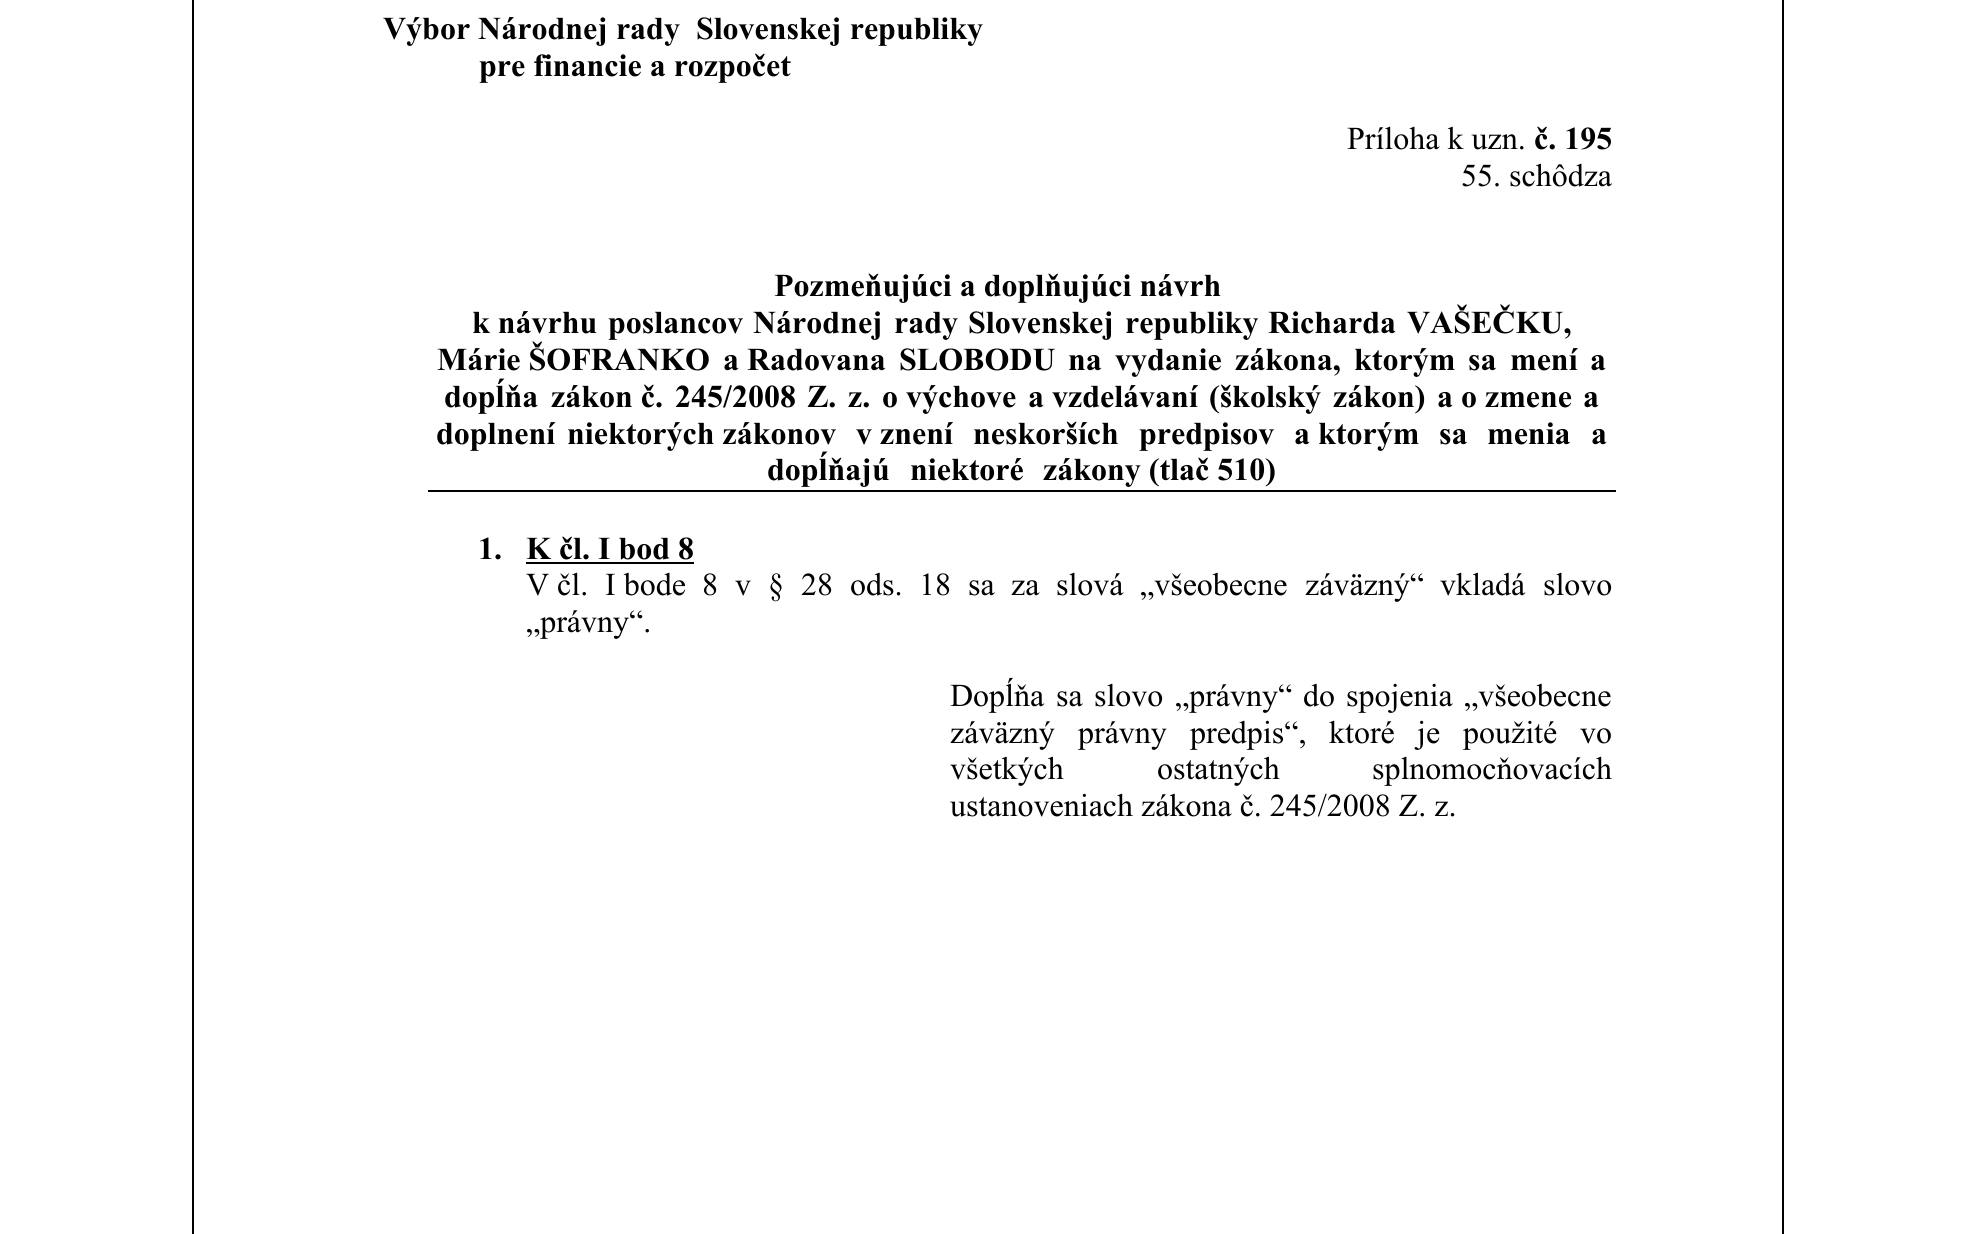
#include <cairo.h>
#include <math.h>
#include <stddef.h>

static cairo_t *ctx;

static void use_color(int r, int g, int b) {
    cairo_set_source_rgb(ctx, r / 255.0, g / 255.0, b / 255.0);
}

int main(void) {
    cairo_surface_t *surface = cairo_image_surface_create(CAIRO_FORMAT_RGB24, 1975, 1234);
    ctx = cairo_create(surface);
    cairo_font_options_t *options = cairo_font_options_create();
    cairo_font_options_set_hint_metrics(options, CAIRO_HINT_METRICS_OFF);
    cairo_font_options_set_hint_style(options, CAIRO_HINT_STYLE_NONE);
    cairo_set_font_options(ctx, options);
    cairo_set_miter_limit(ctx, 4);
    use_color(255, 255, 255);
    cairo_paint(ctx);
    cairo_rectangle(ctx, 193, -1, 1590, 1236);
    use_color(0, 0, 0);
    cairo_stroke(ctx);
    cairo_select_font_face(ctx, "Times New Roman", CAIRO_FONT_SLANT_NORMAL, CAIRO_FONT_WEIGHT_BOLD);
    cairo_set_font_size(ctx, 32);
    cairo_move_to(ctx, 383, 39);
    cairo_show_text(ctx, "Výbor Národnej rady  Slovenskej republiky");
    cairo_move_to(ctx, 479, 76);
    cairo_show_text(ctx, "pre financie a rozpočet");
    cairo_select_font_face(ctx, "Times New Roman", CAIRO_FONT_SLANT_NORMAL, CAIRO_FONT_WEIGHT_NORMAL);
    cairo_move_to(ctx, 1347, 149);
    cairo_show_text(ctx, "Príloha k uzn.");
    cairo_select_font_face(ctx, "Times New Roman", CAIRO_FONT_SLANT_NORMAL, CAIRO_FONT_WEIGHT_BOLD);
    cairo_move_to(ctx, 1534, 149);
    cairo_show_text(ctx, "č. 195");
    cairo_select_font_face(ctx, "Times New Roman", CAIRO_FONT_SLANT_NORMAL, CAIRO_FONT_WEIGHT_NORMAL);
    cairo_move_to(ctx, 1461, 186);
    cairo_show_text(ctx, "55. schôdza");
    cairo_select_font_face(ctx, "Times New Roman", CAIRO_FONT_SLANT_NORMAL, CAIRO_FONT_WEIGHT_BOLD);
    cairo_move_to(ctx, 774, 296);
    cairo_show_text(ctx, "Pozmeňujúci a doplňujúci návrh");
    cairo_move_to(ctx, 472, 333);
    cairo_show_text(ctx, "k návrhu");
    cairo_move_to(ctx, 608, 333);
    cairo_show_text(ctx, "poslancov");
    cairo_move_to(ctx, 753, 333);
    cairo_show_text(ctx, "Národnej");
    cairo_move_to(ctx, 894, 333);
    cairo_show_text(ctx, "rady");
    cairo_move_to(ctx, 968, 333);
    cairo_show_text(ctx, "Slovenskej");
    cairo_move_to(ctx, 1125, 333);
    cairo_show_text(ctx, "republiky");
    cairo_move_to(ctx, 1268, 333);
    cairo_show_text(ctx, "Richarda");
    cairo_move_to(ctx, 1407, 333);
    cairo_show_text(ctx, "VAŠEČKU,");
    cairo_move_to(ctx, 437, 370);
    cairo_show_text(ctx, "Márie ŠOFRANKO");
    cairo_move_to(ctx, 723, 370);
    cairo_show_text(ctx, "a Radovana");
    cairo_move_to(ctx, 899, 370);
    cairo_show_text(ctx, "SLOBODU");
    cairo_move_to(ctx, 1068, 370);
    cairo_show_text(ctx, "na");
    cairo_move_to(ctx, 1115, 370);
    cairo_show_text(ctx, "vydanie");
    cairo_move_to(ctx, 1235, 370);
    cairo_show_text(ctx, "zákona,");
    cairo_move_to(ctx, 1354, 370);
    cairo_show_text(ctx, "ktorým");
    cairo_move_to(ctx, 1468, 370);
    cairo_show_text(ctx, "sa");
    cairo_move_to(ctx, 1510, 370);
    cairo_show_text(ctx, "mení");
    cairo_move_to(ctx, 1590, 370);
    cairo_show_text(ctx, "a");
    cairo_move_to(ctx, 444, 407);
    cairo_show_text(ctx, "dopĺňa");
    cairo_move_to(ctx, 551, 407);
    cairo_show_text(ctx, "zákon č.");
    cairo_move_to(ctx, 675, 407);
    cairo_show_text(ctx, "245/2008");
    cairo_move_to(ctx, 807, 407);
    cairo_show_text(ctx, "Z.");
    cairo_move_to(ctx, 848, 407);
    cairo_show_text(ctx, "z.");
    cairo_move_to(ctx, 882, 407);
    cairo_show_text(ctx, "o výchove");
    cairo_move_to(ctx, 1028, 407);
    cairo_show_text(ctx, "a vzdelávaní");
    cairo_move_to(ctx, 1209, 407);
    cairo_show_text(ctx, "(školský");
    cairo_move_to(ctx, 1333, 407);
    cairo_show_text(ctx, "zákon)");
    cairo_move_to(ctx, 1437, 407);
    cairo_show_text(ctx, "a o zmene");
    cairo_move_to(ctx, 1583, 407);
    cairo_show_text(ctx, "a");
    cairo_move_to(ctx, 436, 444);
    cairo_show_text(ctx, "doplnení");
    cairo_move_to(ctx, 567, 444);
    cairo_show_text(ctx, "niektorých zákonov");
    cairo_move_to(ctx, 856, 444);
    cairo_show_text(ctx, "v znení");
    cairo_move_to(ctx, 973, 444);
    cairo_show_text(ctx, "neskorších");
    cairo_move_to(ctx, 1139, 444);
    cairo_show_text(ctx, "predpisov");
    cairo_move_to(ctx, 1294, 444);
    cairo_show_text(ctx, "a ktorým");
    cairo_move_to(ctx, 1439, 444);
    cairo_show_text(ctx, "sa");
    cairo_move_to(ctx, 1487, 444);
    cairo_show_text(ctx, "menia");
    cairo_move_to(ctx, 1591, 444);
    cairo_show_text(ctx, "a");
    cairo_move_to(ctx, 767, 480);
    cairo_show_text(ctx, "dopĺňajú");
    cairo_move_to(ctx, 910, 480);
    cairo_show_text(ctx, "niektoré");
    cairo_move_to(ctx, 1043, 480);
    cairo_show_text(ctx, "zákony (tlač 510)");
    cairo_rectangle(ctx, 428, 490, 1188, 2);
    cairo_fill(ctx);
    cairo_move_to(ctx, 478, 559);
    cairo_show_text(ctx, "1.");
    cairo_move_to(ctx, 526, 559);
    cairo_show_text(ctx, "K čl. I bod 8");
    cairo_rectangle(ctx, 526, 562, 168, 2);
    cairo_fill(ctx);
    cairo_select_font_face(ctx, "Times New Roman", CAIRO_FONT_SLANT_NORMAL, CAIRO_FONT_WEIGHT_NORMAL);
    cairo_move_to(ctx, 526, 595);
    cairo_show_text(ctx, "V čl.");
    cairo_move_to(ctx, 605, 595);
    cairo_show_text(ctx, "I bode");
    cairo_move_to(ctx, 702, 595);
    cairo_show_text(ctx, "8");
    cairo_move_to(ctx, 735, 595);
    cairo_show_text(ctx, "v");
    cairo_move_to(ctx, 768, 595);
    cairo_show_text(ctx, "§");
    cairo_move_to(ctx, 801, 595);
    cairo_show_text(ctx, "28");
    cairo_move_to(ctx, 850, 595);
    cairo_show_text(ctx, "ods.");
    cairo_move_to(ctx, 919, 595);
    cairo_show_text(ctx, "18");
    cairo_move_to(ctx, 968, 595);
    cairo_show_text(ctx, "sa");
    cairo_move_to(ctx, 1011, 595);
    cairo_show_text(ctx, "za");
    cairo_move_to(ctx, 1056, 595);
    cairo_show_text(ctx, "slová");
    cairo_move_to(ctx, 1140, 595);
    cairo_show_text(ctx, "„všeobecne");
    cairo_move_to(ctx, 1305, 595);
    cairo_show_text(ctx, "záväzný“");
    cairo_move_to(ctx, 1440, 595);
    cairo_show_text(ctx, "vkladá");
    cairo_move_to(ctx, 1543, 595);
    cairo_show_text(ctx, "slovo");
    cairo_move_to(ctx, 526, 632);
    cairo_show_text(ctx, "„právny“.");
    cairo_move_to(ctx, 950, 706);
    cairo_show_text(ctx, "Dopĺňa");
    cairo_move_to(ctx, 1056, 706);
    cairo_show_text(ctx, "sa");
    cairo_move_to(ctx, 1094, 706);
    cairo_show_text(ctx, "slovo");
    cairo_move_to(ctx, 1175, 706);
    cairo_show_text(ctx, "„právny“");
    cairo_move_to(ctx, 1303, 706);
    cairo_show_text(ctx, "do");
    cairo_move_to(ctx, 1346, 706);
    cairo_show_text(ctx, "spojenia");
    cairo_move_to(ctx, 1464, 706);
    cairo_show_text(ctx, "„všeobecne");
    cairo_move_to(ctx, 950, 743);
    cairo_show_text(ctx, "záväzný");
    cairo_move_to(ctx, 1078, 743);
    cairo_show_text(ctx, "právny");
    cairo_move_to(ctx, 1190, 743);
    cairo_show_text(ctx, "predpis“,");
    cairo_move_to(ctx, 1329, 743);
    cairo_show_text(ctx, "ktoré");
    cairo_move_to(ctx, 1417, 743);
    cairo_show_text(ctx, "je");
    cairo_move_to(ctx, 1463, 743);
    cairo_show_text(ctx, "použité");
    cairo_move_to(ctx, 1580, 743);
    cairo_show_text(ctx, "vo");
    cairo_move_to(ctx, 950, 779);
    cairo_show_text(ctx, "všetkých");
    cairo_move_to(ctx, 1157, 779);
    cairo_show_text(ctx, "ostatných");
    cairo_move_to(ctx, 1372, 779);
    cairo_show_text(ctx, "splnomocňovacích");
    cairo_move_to(ctx, 950, 816);
    cairo_show_text(ctx, "ustanoveniach zákona č. 245/2008 Z. z.");
    cairo_surface_write_to_png(surface, "result.png");
    cairo_font_options_destroy(options);
    cairo_destroy(ctx);
    cairo_surface_destroy(surface);
    return 0;
}
